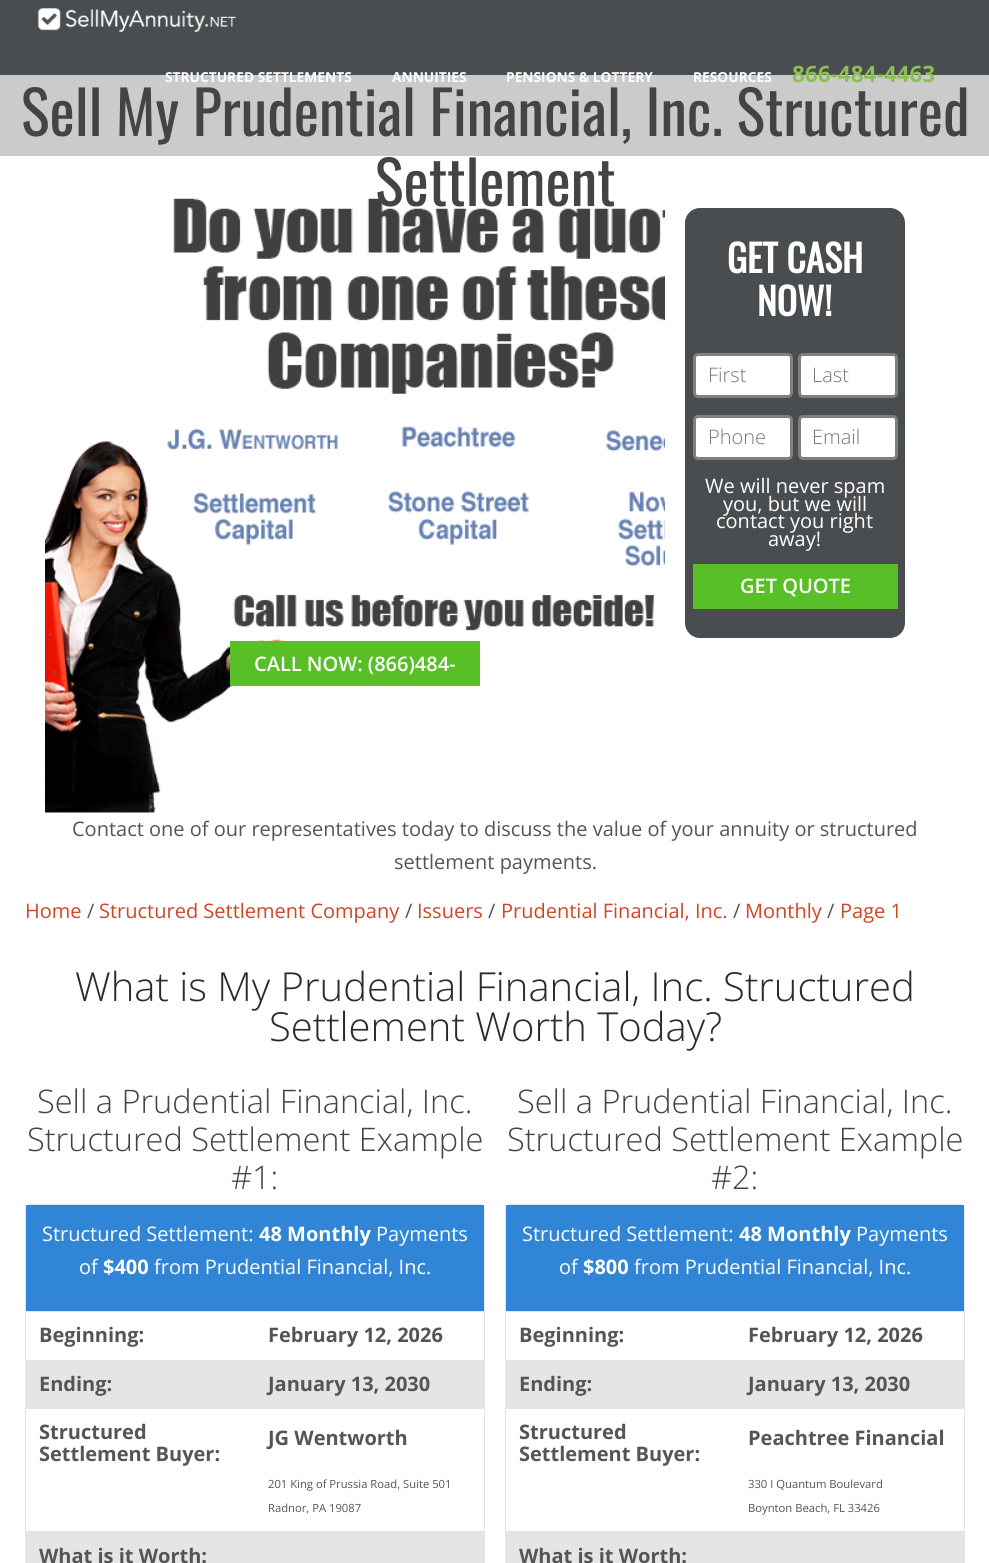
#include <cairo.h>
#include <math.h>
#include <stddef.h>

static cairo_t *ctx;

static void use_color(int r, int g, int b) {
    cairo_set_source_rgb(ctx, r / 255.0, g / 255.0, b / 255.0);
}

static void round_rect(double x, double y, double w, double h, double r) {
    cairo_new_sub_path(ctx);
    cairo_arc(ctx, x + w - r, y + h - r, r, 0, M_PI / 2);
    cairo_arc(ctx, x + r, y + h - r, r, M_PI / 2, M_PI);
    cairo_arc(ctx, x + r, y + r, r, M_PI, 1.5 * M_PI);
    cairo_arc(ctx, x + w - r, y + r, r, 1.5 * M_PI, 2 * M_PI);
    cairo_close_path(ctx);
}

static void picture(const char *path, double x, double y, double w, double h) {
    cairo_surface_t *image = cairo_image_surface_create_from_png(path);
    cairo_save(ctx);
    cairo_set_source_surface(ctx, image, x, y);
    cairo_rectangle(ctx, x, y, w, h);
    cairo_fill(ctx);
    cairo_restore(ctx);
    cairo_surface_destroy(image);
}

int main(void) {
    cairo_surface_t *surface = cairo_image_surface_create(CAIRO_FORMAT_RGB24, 989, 1563);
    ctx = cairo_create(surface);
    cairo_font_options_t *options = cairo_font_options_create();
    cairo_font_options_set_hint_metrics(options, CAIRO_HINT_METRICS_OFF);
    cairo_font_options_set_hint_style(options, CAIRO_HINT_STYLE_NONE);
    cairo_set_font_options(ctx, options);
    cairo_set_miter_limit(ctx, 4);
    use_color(255, 255, 255);
    cairo_paint(ctx);
    use_color(74, 77, 80);
    cairo_rectangle(ctx, 0, 0, 989, 75);
    cairo_fill(ctx);
    picture("img1.png", 37, 8, 199, 24);
    use_color(203, 203, 203);
    cairo_rectangle(ctx, 0, 75, 989, 81);
    cairo_fill(ctx);
    cairo_select_font_face(ctx, "Open Sans", CAIRO_FONT_SLANT_NORMAL, CAIRO_FONT_WEIGHT_BOLD);
    cairo_set_font_size(ctx, 13.75);
    use_color(255, 255, 255);
    cairo_move_to(ctx, 165, 82);
    cairo_show_text(ctx, "STRUCTURED SETTLEMENTS");
    cairo_move_to(ctx, 392, 82);
    cairo_show_text(ctx, "ANNUITIES");
    cairo_move_to(ctx, 506, 82);
    cairo_show_text(ctx, "PENSIONS & LOTTERY");
    cairo_move_to(ctx, 693, 82);
    cairo_show_text(ctx, "RESOURCES");
    cairo_set_font_size(ctx, 22.5);
    use_color(140, 192, 82);
    cairo_move_to(ctx, 792, 82);
    cairo_show_text(ctx, "866-484-4463");
    cairo_select_font_face(ctx, "Oswald", CAIRO_FONT_SLANT_NORMAL, CAIRO_FONT_WEIGHT_NORMAL);
    cairo_set_font_size(ctx, 60);
    use_color(68, 68, 68);
    cairo_move_to(ctx, 21, 136);
    cairo_show_text(ctx, "Sell My Prudential Financial, Inc. Structured");
    picture("img2.png", 45, 198, 620, 615);
    cairo_move_to(ctx, 375, 206);
    cairo_show_text(ctx, "Settlement");
    use_color(74, 77, 80);
    round_rect(685, 208, 220, 430, 15);
    cairo_fill(ctx);
    cairo_select_font_face(ctx, "Oswald", CAIRO_FONT_SLANT_NORMAL, CAIRO_FONT_WEIGHT_BOLD);
    cairo_set_font_size(ctx, 37.5);
    use_color(255, 255, 255);
    cairo_move_to(ctx, 727, 273);
    cairo_show_text(ctx, "GET CASH");
    cairo_move_to(ctx, 757, 316);
    cairo_show_text(ctx, "NOW!");
    round_rect(694.5, 354.5, 97, 42, 3.5);
    cairo_fill_preserve(ctx);
    use_color(128, 128, 128);
    cairo_set_line_width(ctx, 3);
    cairo_stroke(ctx);
    cairo_select_font_face(ctx, "Open Sans Light", CAIRO_FONT_SLANT_NORMAL, CAIRO_FONT_WEIGHT_NORMAL);
    cairo_set_font_size(ctx, 20);
    use_color(117, 117, 117);
    cairo_move_to(ctx, 708, 382);
    cairo_show_text(ctx, "First");
    use_color(255, 255, 255);
    round_rect(799.5, 354.5, 97, 42, 3.5);
    cairo_fill_preserve(ctx);
    use_color(128, 128, 128);
    cairo_stroke(ctx);
    use_color(117, 117, 117);
    cairo_move_to(ctx, 812, 382);
    cairo_show_text(ctx, "Last");
    use_color(255, 255, 255);
    round_rect(694.5, 416.5, 97, 42, 3.5);
    cairo_fill_preserve(ctx);
    use_color(128, 128, 128);
    cairo_stroke(ctx);
    use_color(117, 117, 117);
    cairo_move_to(ctx, 708, 444);
    cairo_show_text(ctx, "Phone");
    use_color(255, 255, 255);
    round_rect(799.5, 416.5, 97, 42, 3.5);
    cairo_fill_preserve(ctx);
    use_color(128, 128, 128);
    cairo_stroke(ctx);
    use_color(117, 117, 117);
    cairo_move_to(ctx, 812, 444);
    cairo_show_text(ctx, "Email");
    cairo_select_font_face(ctx, "Open Sans", CAIRO_FONT_SLANT_NORMAL, CAIRO_FONT_WEIGHT_NORMAL);
    use_color(255, 255, 255);
    cairo_move_to(ctx, 705, 493);
    cairo_show_text(ctx, "We will never spam");
    cairo_move_to(ctx, 723, 511);
    cairo_show_text(ctx, "you, but we will");
    cairo_move_to(ctx, 716, 528);
    cairo_show_text(ctx, "contact you right");
    cairo_move_to(ctx, 768, 546);
    cairo_show_text(ctx, "away!");
    use_color(88, 192, 38);
    cairo_rectangle(ctx, 693, 564, 205, 45);
    cairo_fill(ctx);
    cairo_select_font_face(ctx, "Open Sans SemiBold", CAIRO_FONT_SLANT_NORMAL, CAIRO_FONT_WEIGHT_NORMAL);
    use_color(255, 255, 255);
    cairo_move_to(ctx, 740, 593);
    cairo_show_text(ctx, "GET QUOTE");
    use_color(88, 192, 38);
    cairo_rectangle(ctx, 230, 641, 250, 45);
    cairo_fill(ctx);
    use_color(255, 255, 255);
    cairo_move_to(ctx, 254, 671);
    cairo_show_text(ctx, "CALL NOW: (866)484-");
    cairo_select_font_face(ctx, "Open Sans", CAIRO_FONT_SLANT_NORMAL, CAIRO_FONT_WEIGHT_NORMAL);
    use_color(85, 85, 85);
    cairo_move_to(ctx, 72, 836);
    cairo_show_text(ctx, "Contact one of our representatives today to discuss the value of your annuity or structured");
    cairo_move_to(ctx, 394, 869);
    cairo_show_text(ctx, "settlement payments.");
    use_color(208, 69, 38);
    cairo_move_to(ctx, 25, 918);
    cairo_show_text(ctx, "Home");
    use_color(85, 85, 85);
    cairo_move_to(ctx, 87, 918);
    cairo_show_text(ctx, "/");
    use_color(208, 69, 38);
    cairo_move_to(ctx, 99, 918);
    cairo_show_text(ctx, "Structured Settlement Company");
    use_color(85, 85, 85);
    cairo_move_to(ctx, 405, 918);
    cairo_show_text(ctx, "/");
    use_color(208, 69, 38);
    cairo_move_to(ctx, 417, 918);
    cairo_show_text(ctx, "Issuers");
    use_color(85, 85, 85);
    cairo_move_to(ctx, 488, 918);
    cairo_show_text(ctx, "/");
    use_color(208, 69, 38);
    cairo_move_to(ctx, 501, 918);
    cairo_show_text(ctx, "Prudential Financial, Inc.");
    use_color(85, 85, 85);
    cairo_move_to(ctx, 733, 918);
    cairo_show_text(ctx, "/");
    use_color(208, 69, 38);
    cairo_move_to(ctx, 745, 918);
    cairo_show_text(ctx, "Monthly");
    use_color(85, 85, 85);
    cairo_move_to(ctx, 827, 918);
    cairo_show_text(ctx, "/");
    use_color(208, 69, 38);
    cairo_move_to(ctx, 840, 918);
    cairo_show_text(ctx, "Page 1");
    cairo_select_font_face(ctx, "Open Sans Light", CAIRO_FONT_SLANT_NORMAL, CAIRO_FONT_WEIGHT_NORMAL);
    cairo_set_font_size(ctx, 40);
    use_color(43, 43, 43);
    cairo_move_to(ctx, 75, 1001);
    cairo_show_text(ctx, "What is My Prudential Financial, Inc. Structured");
    cairo_move_to(ctx, 269, 1041);
    cairo_show_text(ctx, "Settlement Worth Today?");
    cairo_set_font_size(ctx, 32.5);
    use_color(68, 68, 68);
    cairo_move_to(ctx, 37, 1113);
    cairo_show_text(ctx, "Sell a Prudential Financial, Inc.");
    cairo_move_to(ctx, 27, 1151);
    cairo_show_text(ctx, "Structured Settlement Example");
    cairo_move_to(ctx, 231, 1189);
    cairo_show_text(ctx, "#1:");
    round_rect(25.5, 1204.5, 459, 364, 4.5);
    use_color(229, 229, 229);
    cairo_set_line_width(ctx, 1);
    cairo_stroke(ctx);
    use_color(48, 133, 214);
    cairo_rectangle(ctx, 26, 1205, 458, 106);
    cairo_fill(ctx);
    cairo_select_font_face(ctx, "Open Sans", CAIRO_FONT_SLANT_NORMAL, CAIRO_FONT_WEIGHT_NORMAL);
    cairo_set_font_size(ctx, 20);
    use_color(255, 255, 255);
    cairo_move_to(ctx, 42, 1241);
    cairo_show_text(ctx, "Structured Settlement:");
    cairo_select_font_face(ctx, "Open Sans", CAIRO_FONT_SLANT_NORMAL, CAIRO_FONT_WEIGHT_BOLD);
    cairo_move_to(ctx, 259, 1241);
    cairo_show_text(ctx, "48 Monthly");
    cairo_select_font_face(ctx, "Open Sans", CAIRO_FONT_SLANT_NORMAL, CAIRO_FONT_WEIGHT_NORMAL);
    cairo_move_to(ctx, 376, 1241);
    cairo_show_text(ctx, "Payments");
    cairo_move_to(ctx, 79, 1274);
    cairo_show_text(ctx, "of");
    cairo_select_font_face(ctx, "Open Sans", CAIRO_FONT_SLANT_NORMAL, CAIRO_FONT_WEIGHT_BOLD);
    cairo_move_to(ctx, 103, 1274);
    cairo_show_text(ctx, "$400");
    cairo_select_font_face(ctx, "Open Sans", CAIRO_FONT_SLANT_NORMAL, CAIRO_FONT_WEIGHT_NORMAL);
    cairo_move_to(ctx, 154, 1274);
    cairo_show_text(ctx, "from Prudential Financial, Inc.");
    use_color(229, 229, 229);
    cairo_rectangle(ctx, 26, 1311, 458, 1);
    cairo_fill(ctx);
    cairo_select_font_face(ctx, "Open Sans", CAIRO_FONT_SLANT_NORMAL, CAIRO_FONT_WEIGHT_BOLD);
    use_color(85, 85, 85);
    cairo_move_to(ctx, 39, 1342);
    cairo_show_text(ctx, "Beginning:");
    cairo_move_to(ctx, 268, 1342);
    cairo_show_text(ctx, "February 12, 2026");
    use_color(229, 229, 229);
    cairo_rectangle(ctx, 26, 1360, 458, 48);
    cairo_fill(ctx);
    use_color(85, 85, 85);
    cairo_move_to(ctx, 39, 1391);
    cairo_show_text(ctx, "Ending:");
    cairo_move_to(ctx, 268, 1391);
    cairo_show_text(ctx, "January 13, 2030");
    use_color(229, 229, 229);
    cairo_rectangle(ctx, 26, 1408, 458, 1);
    cairo_fill(ctx);
    use_color(85, 85, 85);
    cairo_move_to(ctx, 39, 1439);
    cairo_show_text(ctx, "Structured");
    cairo_move_to(ctx, 39, 1461);
    cairo_show_text(ctx, "Settlement Buyer:");
    cairo_move_to(ctx, 268, 1445);
    cairo_show_text(ctx, "JG Wentworth");
    cairo_select_font_face(ctx, "Open Sans", CAIRO_FONT_SLANT_NORMAL, CAIRO_FONT_WEIGHT_NORMAL);
    cairo_set_font_size(ctx, 11.25);
    cairo_move_to(ctx, 268, 1488);
    cairo_show_text(ctx, "201 King of Prussia Road, Suite 501");
    cairo_move_to(ctx, 268, 1512);
    cairo_show_text(ctx, "Radnor, PA 19087");
    use_color(229, 229, 229);
    cairo_rectangle(ctx, 26, 1531, 458, 32);
    cairo_fill(ctx);
    cairo_select_font_face(ctx, "Open Sans", CAIRO_FONT_SLANT_NORMAL, CAIRO_FONT_WEIGHT_BOLD);
    cairo_set_font_size(ctx, 20);
    use_color(85, 85, 85);
    cairo_move_to(ctx, 39, 1563);
    cairo_show_text(ctx, "What is it Worth:");
    cairo_select_font_face(ctx, "Open Sans Light", CAIRO_FONT_SLANT_NORMAL, CAIRO_FONT_WEIGHT_NORMAL);
    cairo_set_font_size(ctx, 32.5);
    use_color(68, 68, 68);
    cairo_move_to(ctx, 517, 1113);
    cairo_show_text(ctx, "Sell a Prudential Financial, Inc.");
    cairo_move_to(ctx, 507, 1151);
    cairo_show_text(ctx, "Structured Settlement Example");
    cairo_move_to(ctx, 711, 1189);
    cairo_show_text(ctx, "#2:");
    round_rect(505.5, 1204.5, 459, 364, 4.5);
    use_color(229, 229, 229);
    cairo_stroke(ctx);
    use_color(48, 133, 214);
    cairo_rectangle(ctx, 506, 1205, 458, 106);
    cairo_fill(ctx);
    cairo_select_font_face(ctx, "Open Sans", CAIRO_FONT_SLANT_NORMAL, CAIRO_FONT_WEIGHT_NORMAL);
    cairo_set_font_size(ctx, 20);
    use_color(255, 255, 255);
    cairo_move_to(ctx, 522, 1241);
    cairo_show_text(ctx, "Structured Settlement:");
    cairo_select_font_face(ctx, "Open Sans", CAIRO_FONT_SLANT_NORMAL, CAIRO_FONT_WEIGHT_BOLD);
    cairo_move_to(ctx, 739, 1241);
    cairo_show_text(ctx, "48 Monthly");
    cairo_select_font_face(ctx, "Open Sans", CAIRO_FONT_SLANT_NORMAL, CAIRO_FONT_WEIGHT_NORMAL);
    cairo_move_to(ctx, 856, 1241);
    cairo_show_text(ctx, "Payments");
    cairo_move_to(ctx, 559, 1274);
    cairo_show_text(ctx, "of");
    cairo_select_font_face(ctx, "Open Sans", CAIRO_FONT_SLANT_NORMAL, CAIRO_FONT_WEIGHT_BOLD);
    cairo_move_to(ctx, 583, 1274);
    cairo_show_text(ctx, "$800");
    cairo_select_font_face(ctx, "Open Sans", CAIRO_FONT_SLANT_NORMAL, CAIRO_FONT_WEIGHT_NORMAL);
    cairo_move_to(ctx, 634, 1274);
    cairo_show_text(ctx, "from Prudential Financial, Inc.");
    use_color(229, 229, 229);
    cairo_rectangle(ctx, 506, 1311, 458, 1);
    cairo_fill(ctx);
    cairo_select_font_face(ctx, "Open Sans", CAIRO_FONT_SLANT_NORMAL, CAIRO_FONT_WEIGHT_BOLD);
    use_color(85, 85, 85);
    cairo_move_to(ctx, 519, 1342);
    cairo_show_text(ctx, "Beginning:");
    cairo_move_to(ctx, 748, 1342);
    cairo_show_text(ctx, "February 12, 2026");
    use_color(229, 229, 229);
    cairo_rectangle(ctx, 506, 1360, 458, 48);
    cairo_fill(ctx);
    use_color(85, 85, 85);
    cairo_move_to(ctx, 519, 1391);
    cairo_show_text(ctx, "Ending:");
    cairo_move_to(ctx, 748, 1391);
    cairo_show_text(ctx, "January 13, 2030");
    use_color(229, 229, 229);
    cairo_rectangle(ctx, 506, 1408, 458, 1);
    cairo_fill(ctx);
    use_color(85, 85, 85);
    cairo_move_to(ctx, 519, 1439);
    cairo_show_text(ctx, "Structured");
    cairo_move_to(ctx, 519, 1461);
    cairo_show_text(ctx, "Settlement Buyer:");
    cairo_move_to(ctx, 748, 1445);
    cairo_show_text(ctx, "Peachtree Financial");
    cairo_select_font_face(ctx, "Open Sans", CAIRO_FONT_SLANT_NORMAL, CAIRO_FONT_WEIGHT_NORMAL);
    cairo_set_font_size(ctx, 11.25);
    cairo_move_to(ctx, 748, 1488);
    cairo_show_text(ctx, "330 I Quantum Boulevard");
    cairo_move_to(ctx, 748, 1512);
    cairo_show_text(ctx, "Boynton Beach, FL 33426");
    use_color(229, 229, 229);
    cairo_rectangle(ctx, 506, 1531, 458, 32);
    cairo_fill(ctx);
    cairo_select_font_face(ctx, "Open Sans", CAIRO_FONT_SLANT_NORMAL, CAIRO_FONT_WEIGHT_BOLD);
    cairo_set_font_size(ctx, 20);
    use_color(85, 85, 85);
    cairo_move_to(ctx, 519, 1563);
    cairo_show_text(ctx, "What is it Worth:");
    cairo_surface_write_to_png(surface, "result.png");
    cairo_font_options_destroy(options);
    cairo_destroy(ctx);
    cairo_surface_destroy(surface);
    return 0;
}
